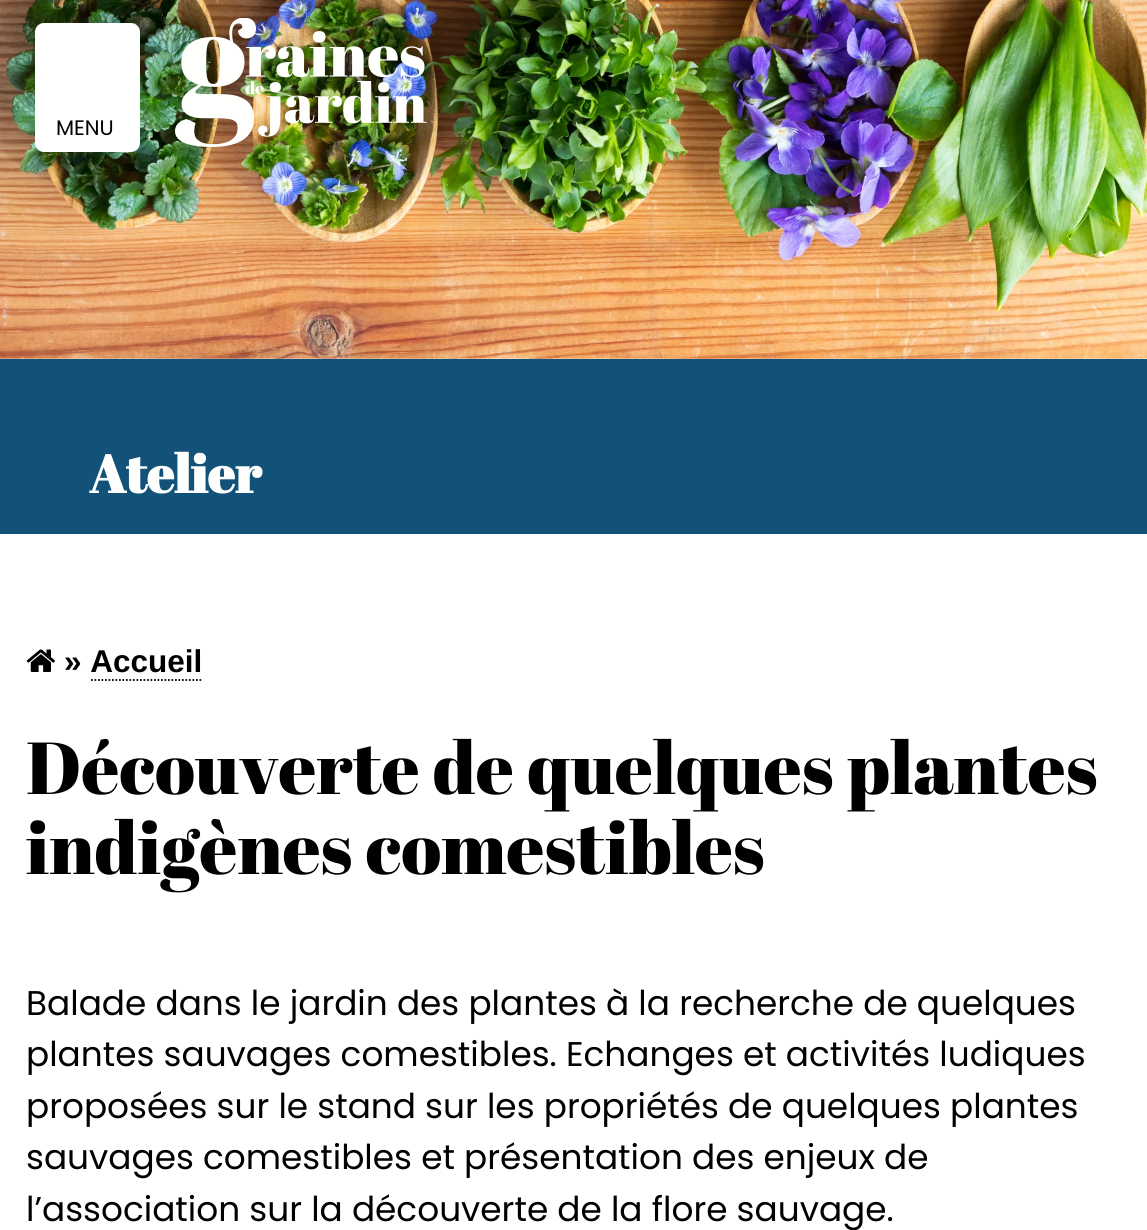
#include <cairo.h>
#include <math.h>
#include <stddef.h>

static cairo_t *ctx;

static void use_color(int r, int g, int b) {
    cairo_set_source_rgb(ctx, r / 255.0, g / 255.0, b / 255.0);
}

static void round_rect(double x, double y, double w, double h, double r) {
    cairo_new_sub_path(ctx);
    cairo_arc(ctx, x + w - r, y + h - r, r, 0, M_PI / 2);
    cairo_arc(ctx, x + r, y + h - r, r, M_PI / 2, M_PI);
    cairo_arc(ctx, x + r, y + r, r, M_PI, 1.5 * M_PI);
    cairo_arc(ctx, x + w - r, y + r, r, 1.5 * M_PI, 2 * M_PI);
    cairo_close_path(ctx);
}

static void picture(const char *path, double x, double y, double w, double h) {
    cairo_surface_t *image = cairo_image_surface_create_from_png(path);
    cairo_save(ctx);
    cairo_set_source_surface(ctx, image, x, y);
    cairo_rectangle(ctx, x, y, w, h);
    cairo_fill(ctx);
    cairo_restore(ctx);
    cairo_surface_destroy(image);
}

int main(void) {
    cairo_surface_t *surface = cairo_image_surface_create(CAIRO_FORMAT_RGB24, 1147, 1230);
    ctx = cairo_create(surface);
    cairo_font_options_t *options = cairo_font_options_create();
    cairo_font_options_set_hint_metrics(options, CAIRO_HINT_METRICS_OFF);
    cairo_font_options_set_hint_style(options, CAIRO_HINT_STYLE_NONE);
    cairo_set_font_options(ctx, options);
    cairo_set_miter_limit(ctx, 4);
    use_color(255, 255, 255);
    cairo_paint(ctx);
    picture("img1.png", 0, 0, 1147, 359);
    use_color(255, 255, 255);
    round_rect(35, 23, 105, 129, 9);
    cairo_fill(ctx);
    cairo_select_font_face(ctx, "Poppins", CAIRO_FONT_SLANT_NORMAL, CAIRO_FONT_WEIGHT_NORMAL);
    cairo_set_font_size(ctx, 21);
    use_color(0, 0, 0);
    cairo_move_to(ctx, 56, 135);
    cairo_show_text(ctx, "MENU");
    picture("img2.png", 175, 18, 252, 129);
    use_color(18, 81, 120);
    cairo_rectangle(ctx, 0, 359, 1147, 175);
    cairo_fill(ctx);
    cairo_select_font_face(ctx, "Abril Fatface", CAIRO_FONT_SLANT_NORMAL, CAIRO_FONT_WEIGHT_BOLD);
    cairo_set_font_size(ctx, 53);
    use_color(255, 255, 255);
    cairo_move_to(ctx, 89, 493);
    cairo_show_text(ctx, "Atelier");
    picture("img3.png", 26, 649, 29, 23);
    cairo_select_font_face(ctx, "Liberation Sans", CAIRO_FONT_SLANT_NORMAL, CAIRO_FONT_WEIGHT_BOLD);
    cairo_set_font_size(ctx, 31.5);
    use_color(0, 0, 0);
    cairo_move_to(ctx, 64, 672);
    cairo_show_text(ctx, "» Accueil");
    cairo_new_path(ctx);
    cairo_move_to(ctx, 91, 680);
    cairo_line_to(ctx, 203, 680);
    cairo_set_line_width(ctx, 1.8);
    cairo_set_dash(ctx, (double[]){1.75, 1.75}, 2, 0);
    cairo_stroke(ctx);
    cairo_select_font_face(ctx, "Abril Fatface", CAIRO_FONT_SLANT_NORMAL, CAIRO_FONT_WEIGHT_NORMAL);
    cairo_set_font_size(ctx, 73.5);
    cairo_move_to(ctx, 26, 794);
    cairo_show_text(ctx, "Découverte de quelques plantes");
    cairo_move_to(ctx, 26, 874);
    cairo_show_text(ctx, "indigènes comestibles");
    cairo_select_font_face(ctx, "Poppins", CAIRO_FONT_SLANT_NORMAL, CAIRO_FONT_WEIGHT_NORMAL);
    cairo_set_font_size(ctx, 34.3);
    cairo_move_to(ctx, 26, 1015);
    cairo_show_text(ctx, "Balade dans le jardin des plantes à la recherche de quelques");
    cairo_move_to(ctx, 26, 1066);
    cairo_show_text(ctx, "plantes sauvages comestibles. Echanges et activités ludiques");
    cairo_move_to(ctx, 26, 1118);
    cairo_show_text(ctx, "proposées sur le stand sur les propriétés de quelques plantes");
    cairo_move_to(ctx, 26, 1169);
    cairo_show_text(ctx, "sauvages comestibles et présentation des enjeux de");
    cairo_move_to(ctx, 26, 1221);
    cairo_show_text(ctx, "l’association sur la découverte de la flore sauvage.");
    cairo_surface_write_to_png(surface, "result.png");
    cairo_font_options_destroy(options);
    cairo_destroy(ctx);
    cairo_surface_destroy(surface);
    return 0;
}
